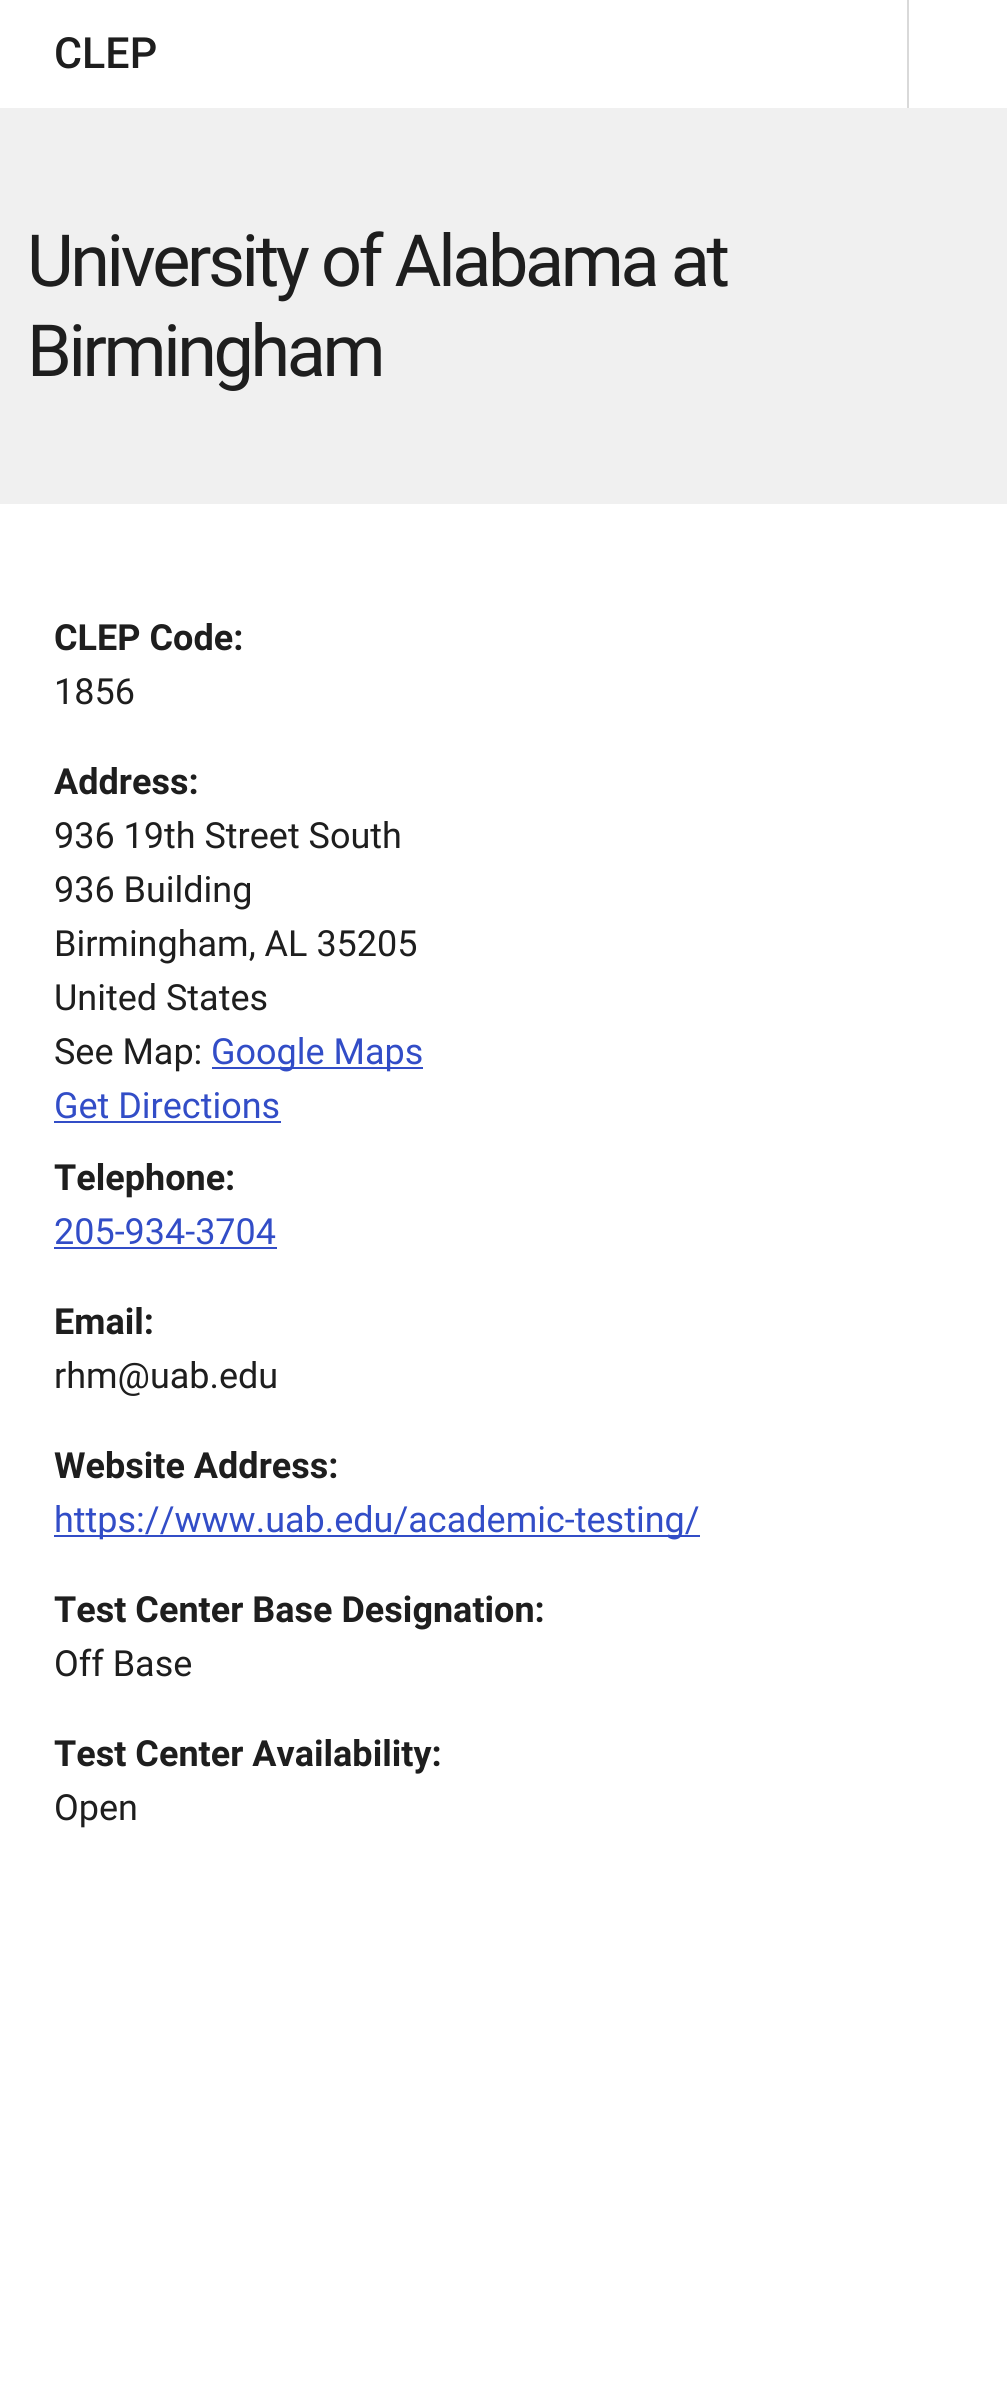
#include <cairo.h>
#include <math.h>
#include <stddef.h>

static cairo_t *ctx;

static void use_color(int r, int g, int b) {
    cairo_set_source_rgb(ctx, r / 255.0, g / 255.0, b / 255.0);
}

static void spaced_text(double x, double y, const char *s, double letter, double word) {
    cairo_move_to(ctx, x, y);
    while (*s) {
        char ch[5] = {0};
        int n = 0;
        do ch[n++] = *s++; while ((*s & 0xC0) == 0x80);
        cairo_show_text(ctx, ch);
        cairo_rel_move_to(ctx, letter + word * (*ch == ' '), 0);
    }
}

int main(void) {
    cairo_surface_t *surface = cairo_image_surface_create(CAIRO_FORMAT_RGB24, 1007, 2387);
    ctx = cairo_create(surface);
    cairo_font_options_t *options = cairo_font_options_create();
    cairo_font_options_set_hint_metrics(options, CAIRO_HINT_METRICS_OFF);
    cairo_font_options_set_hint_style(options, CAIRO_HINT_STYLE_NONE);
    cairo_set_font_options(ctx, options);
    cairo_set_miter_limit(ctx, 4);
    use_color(255, 255, 255);
    cairo_paint(ctx);
    cairo_select_font_face(ctx, "Roboto Medium", CAIRO_FONT_SLANT_NORMAL, CAIRO_FONT_WEIGHT_NORMAL);
    cairo_set_font_size(ctx, 43);
    use_color(30, 30, 30);
    cairo_move_to(ctx, 54, 68);
    cairo_show_text(ctx, "CLEP");
    use_color(217, 217, 217);
    cairo_rectangle(ctx, 907, 0, 2, 108);
    cairo_fill(ctx);
    use_color(240, 240, 240);
    cairo_rectangle(ctx, 0, 108, 1007, 396);
    cairo_fill(ctx);
    cairo_select_font_face(ctx, "Roboto", CAIRO_FONT_SLANT_NORMAL, CAIRO_FONT_WEIGHT_NORMAL);
    cairo_set_font_size(ctx, 72);
    use_color(30, 30, 30);
    spaced_text(27, 286, "University of Alabama at", -3.4, 0);
    spaced_text(27, 376, "Birmingham", -3.4, 0);
    cairo_select_font_face(ctx, "Roboto", CAIRO_FONT_SLANT_NORMAL, CAIRO_FONT_WEIGHT_BOLD);
    cairo_set_font_size(ctx, 36);
    cairo_move_to(ctx, 54, 650);
    cairo_show_text(ctx, "CLEP Code:");
    cairo_select_font_face(ctx, "Roboto", CAIRO_FONT_SLANT_NORMAL, CAIRO_FONT_WEIGHT_NORMAL);
    cairo_move_to(ctx, 54, 704);
    cairo_show_text(ctx, "1856");
    cairo_select_font_face(ctx, "Roboto", CAIRO_FONT_SLANT_NORMAL, CAIRO_FONT_WEIGHT_BOLD);
    cairo_move_to(ctx, 54, 794);
    cairo_show_text(ctx, "Address:");
    cairo_select_font_face(ctx, "Roboto", CAIRO_FONT_SLANT_NORMAL, CAIRO_FONT_WEIGHT_NORMAL);
    cairo_move_to(ctx, 54, 848);
    cairo_show_text(ctx, "936 19th Street South");
    cairo_move_to(ctx, 54, 902);
    cairo_show_text(ctx, "936 Building");
    cairo_move_to(ctx, 54, 956);
    cairo_show_text(ctx, "Birmingham, AL 35205");
    cairo_move_to(ctx, 54, 1010);
    cairo_show_text(ctx, "United States");
    cairo_move_to(ctx, 54, 1064);
    cairo_show_text(ctx, "See Map:");
    use_color(50, 77, 199);
    cairo_rectangle(ctx, 212, 1067, 211, 2);
    cairo_fill(ctx);
    cairo_move_to(ctx, 211, 1064);
    cairo_show_text(ctx, "Google Maps");
    cairo_move_to(ctx, 54, 1118);
    cairo_show_text(ctx, "Get Directions");
    cairo_rectangle(ctx, 54, 1121, 227, 2);
    cairo_fill(ctx);
    cairo_select_font_face(ctx, "Roboto", CAIRO_FONT_SLANT_NORMAL, CAIRO_FONT_WEIGHT_BOLD);
    use_color(30, 30, 30);
    cairo_move_to(ctx, 54, 1190);
    cairo_show_text(ctx, "Telephone:");
    cairo_select_font_face(ctx, "Roboto", CAIRO_FONT_SLANT_NORMAL, CAIRO_FONT_WEIGHT_NORMAL);
    use_color(50, 77, 199);
    cairo_move_to(ctx, 54, 1244);
    cairo_show_text(ctx, "205-934-3704");
    cairo_rectangle(ctx, 54, 1247, 223, 2);
    cairo_fill(ctx);
    cairo_select_font_face(ctx, "Roboto", CAIRO_FONT_SLANT_NORMAL, CAIRO_FONT_WEIGHT_BOLD);
    use_color(30, 30, 30);
    cairo_move_to(ctx, 54, 1334);
    cairo_show_text(ctx, "Email:");
    cairo_select_font_face(ctx, "Roboto", CAIRO_FONT_SLANT_NORMAL, CAIRO_FONT_WEIGHT_NORMAL);
    cairo_move_to(ctx, 54, 1388);
    cairo_show_text(ctx, "rhm@uab.edu");
    cairo_select_font_face(ctx, "Roboto", CAIRO_FONT_SLANT_NORMAL, CAIRO_FONT_WEIGHT_BOLD);
    cairo_move_to(ctx, 54, 1478);
    cairo_show_text(ctx, "Website Address:");
    use_color(50, 77, 199);
    cairo_rectangle(ctx, 54, 1535, 646, 2);
    cairo_fill(ctx);
    cairo_select_font_face(ctx, "Roboto", CAIRO_FONT_SLANT_NORMAL, CAIRO_FONT_WEIGHT_NORMAL);
    cairo_move_to(ctx, 54, 1532);
    cairo_show_text(ctx, "https://www.uab.edu/academic-testing/");
    cairo_select_font_face(ctx, "Roboto", CAIRO_FONT_SLANT_NORMAL, CAIRO_FONT_WEIGHT_BOLD);
    use_color(30, 30, 30);
    cairo_move_to(ctx, 54, 1622);
    cairo_show_text(ctx, "Test Center Base Designation:");
    cairo_select_font_face(ctx, "Roboto", CAIRO_FONT_SLANT_NORMAL, CAIRO_FONT_WEIGHT_NORMAL);
    cairo_move_to(ctx, 54, 1676);
    cairo_show_text(ctx, "Off Base");
    cairo_select_font_face(ctx, "Roboto", CAIRO_FONT_SLANT_NORMAL, CAIRO_FONT_WEIGHT_BOLD);
    cairo_move_to(ctx, 54, 1766);
    cairo_show_text(ctx, "Test Center Availability:");
    cairo_select_font_face(ctx, "Roboto", CAIRO_FONT_SLANT_NORMAL, CAIRO_FONT_WEIGHT_NORMAL);
    cairo_move_to(ctx, 54, 1820);
    cairo_show_text(ctx, "Open");
    cairo_surface_write_to_png(surface, "result.png");
    cairo_font_options_destroy(options);
    cairo_destroy(ctx);
    cairo_surface_destroy(surface);
    return 0;
}
